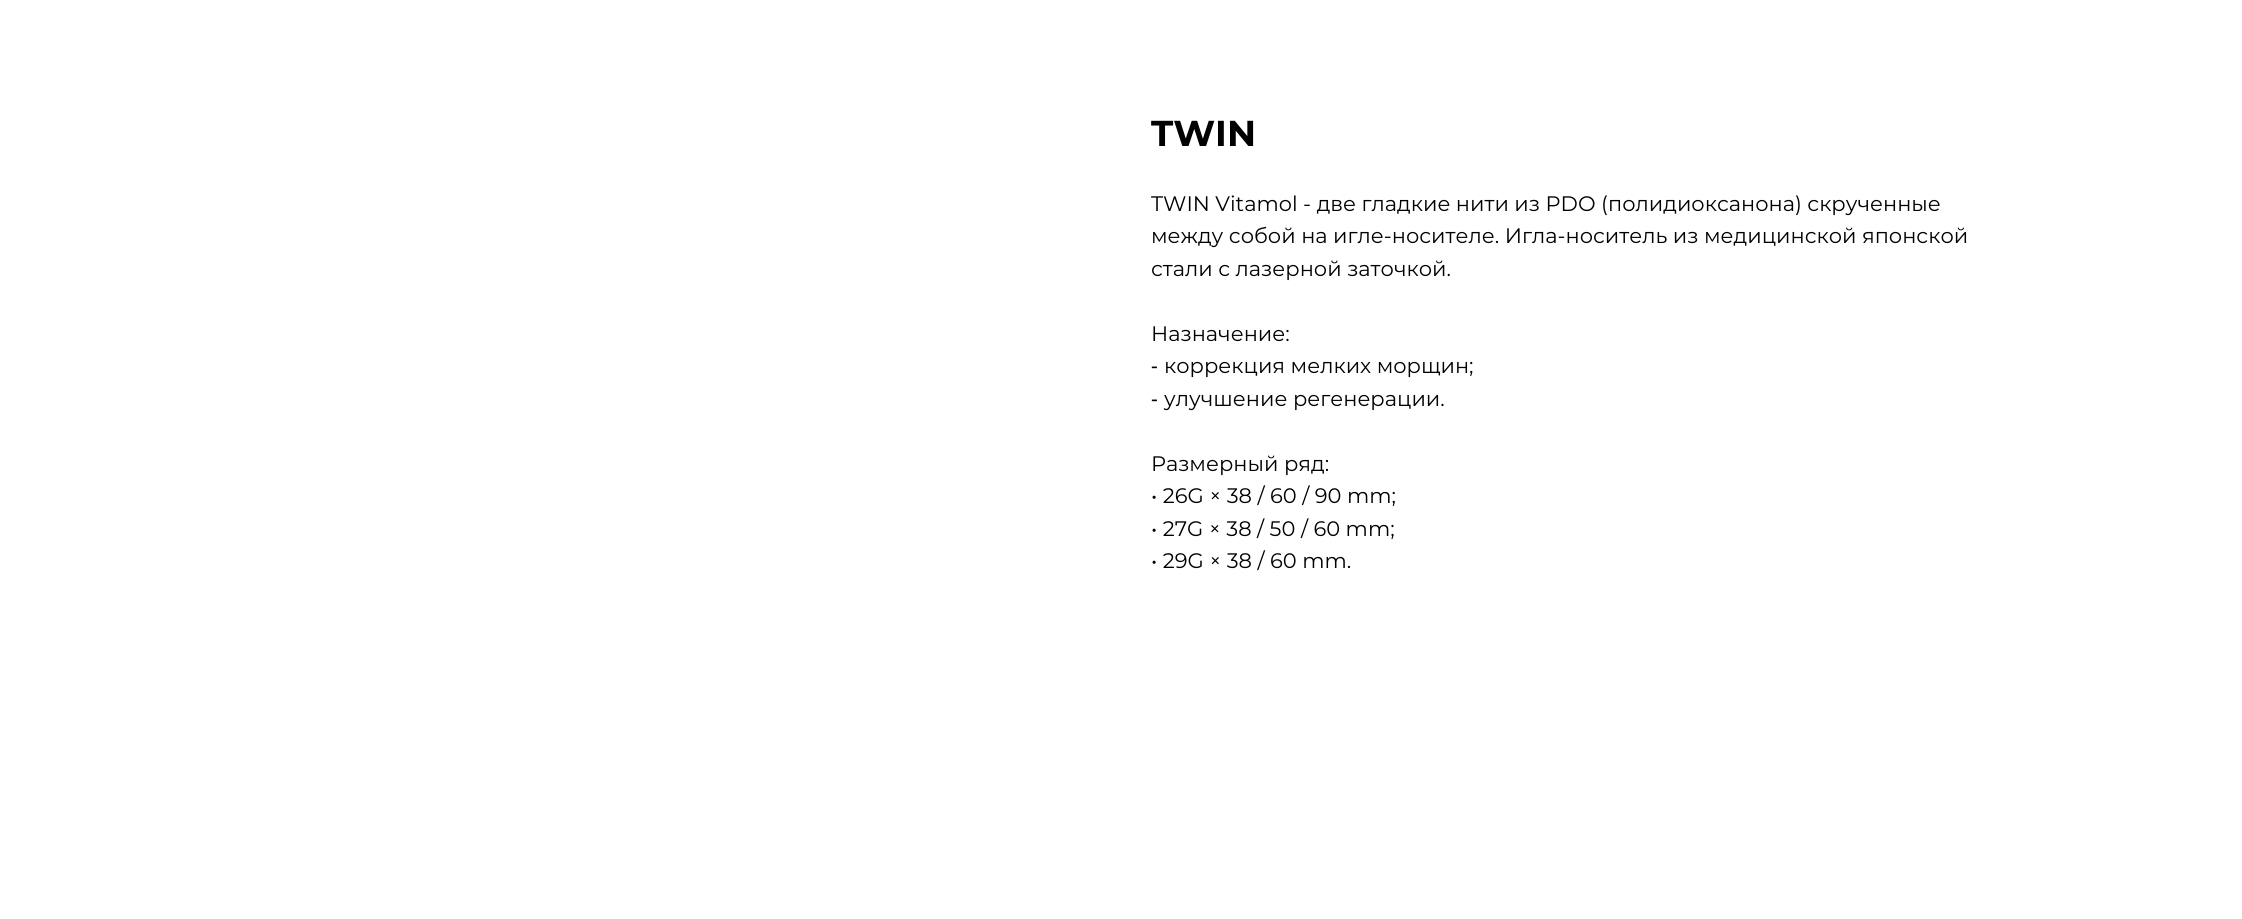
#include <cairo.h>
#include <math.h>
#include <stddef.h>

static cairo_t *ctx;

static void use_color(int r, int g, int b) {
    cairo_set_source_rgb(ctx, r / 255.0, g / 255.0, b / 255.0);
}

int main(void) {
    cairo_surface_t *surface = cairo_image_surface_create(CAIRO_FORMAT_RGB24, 2242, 919);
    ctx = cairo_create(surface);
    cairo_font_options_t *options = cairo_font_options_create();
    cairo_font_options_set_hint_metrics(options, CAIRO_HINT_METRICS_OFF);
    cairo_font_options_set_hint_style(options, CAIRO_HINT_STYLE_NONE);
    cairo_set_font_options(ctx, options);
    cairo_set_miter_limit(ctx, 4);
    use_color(255, 255, 255);
    cairo_paint(ctx);
    cairo_select_font_face(ctx, "Montserrat", CAIRO_FONT_SLANT_NORMAL, CAIRO_FONT_WEIGHT_BOLD);
    cairo_set_font_size(ctx, 36);
    use_color(0, 0, 0);
    cairo_move_to(ctx, 1151, 146);
    cairo_show_text(ctx, "TWIN");
    cairo_select_font_face(ctx, "Montserrat", CAIRO_FONT_SLANT_NORMAL, CAIRO_FONT_WEIGHT_NORMAL);
    cairo_set_font_size(ctx, 21);
    cairo_move_to(ctx, 1151, 211);
    cairo_show_text(ctx, "TWIN Vitamol - две гладкие нити из PDO (полидиоксанона) скрученные");
    cairo_move_to(ctx, 1151, 243);
    cairo_show_text(ctx, "между собой на игле-носителе. Игла-носитель из медицинской японской");
    cairo_move_to(ctx, 1151, 276);
    cairo_show_text(ctx, "стали с лазерной заточкой.");
    cairo_move_to(ctx, 1151, 341);
    cairo_show_text(ctx, "Назначение:");
    cairo_select_font_face(ctx, "Noto Sans", CAIRO_FONT_SLANT_NORMAL, CAIRO_FONT_WEIGHT_NORMAL);
    cairo_move_to(ctx, 1151, 373);
    cairo_show_text(ctx, "⁃");
    cairo_select_font_face(ctx, "Montserrat", CAIRO_FONT_SLANT_NORMAL, CAIRO_FONT_WEIGHT_NORMAL);
    cairo_move_to(ctx, 1164, 373);
    cairo_show_text(ctx, "коррекция мелких морщин;");
    cairo_select_font_face(ctx, "Noto Sans", CAIRO_FONT_SLANT_NORMAL, CAIRO_FONT_WEIGHT_NORMAL);
    cairo_move_to(ctx, 1151, 406);
    cairo_show_text(ctx, "⁃");
    cairo_select_font_face(ctx, "Montserrat", CAIRO_FONT_SLANT_NORMAL, CAIRO_FONT_WEIGHT_NORMAL);
    cairo_move_to(ctx, 1164, 406);
    cairo_show_text(ctx, "улучшение регенерации.");
    cairo_move_to(ctx, 1151, 471);
    cairo_show_text(ctx, "Размерный ряд:");
    cairo_move_to(ctx, 1151, 503);
    cairo_show_text(ctx, "• 26G × 38 / 60 / 90 mm;");
    cairo_move_to(ctx, 1151, 536);
    cairo_show_text(ctx, "• 27G × 38 / 50 / 60 mm;");
    cairo_move_to(ctx, 1151, 568);
    cairo_show_text(ctx, "• 29G × 38 / 60 mm.");
    cairo_surface_write_to_png(surface, "result.png");
    cairo_font_options_destroy(options);
    cairo_destroy(ctx);
    cairo_surface_destroy(surface);
    return 0;
}
